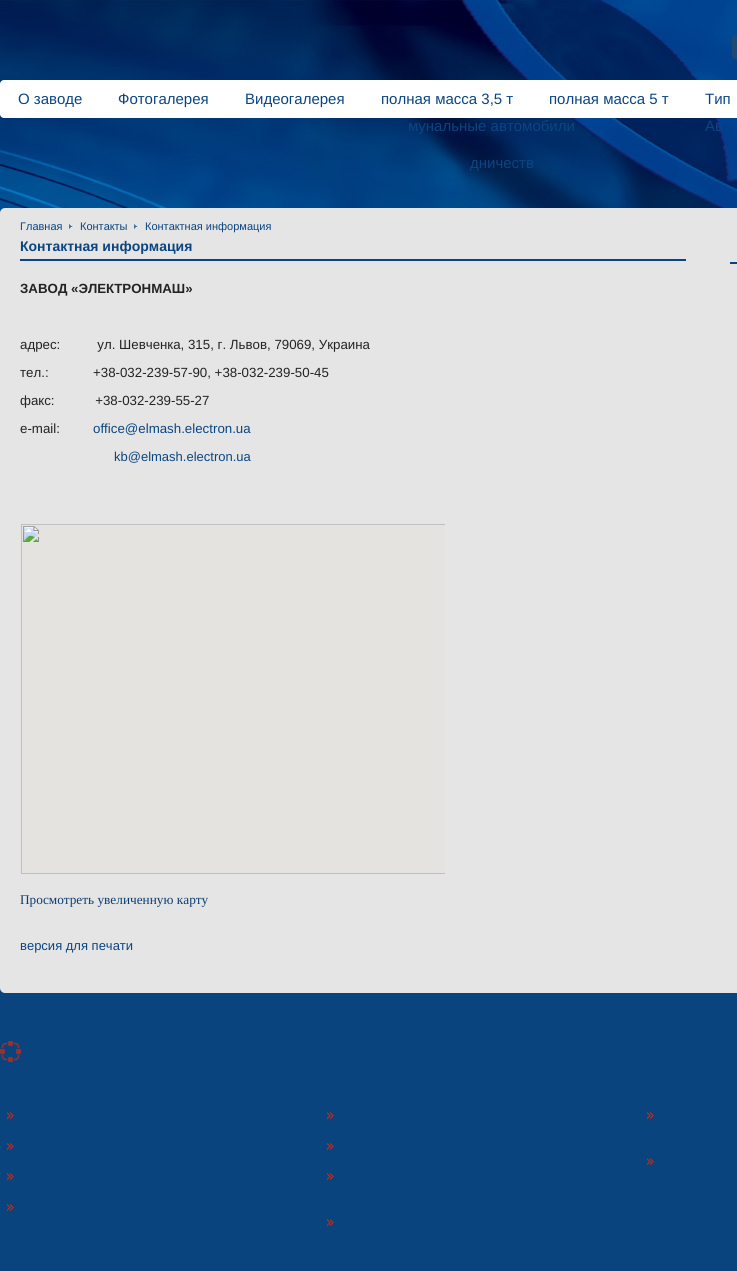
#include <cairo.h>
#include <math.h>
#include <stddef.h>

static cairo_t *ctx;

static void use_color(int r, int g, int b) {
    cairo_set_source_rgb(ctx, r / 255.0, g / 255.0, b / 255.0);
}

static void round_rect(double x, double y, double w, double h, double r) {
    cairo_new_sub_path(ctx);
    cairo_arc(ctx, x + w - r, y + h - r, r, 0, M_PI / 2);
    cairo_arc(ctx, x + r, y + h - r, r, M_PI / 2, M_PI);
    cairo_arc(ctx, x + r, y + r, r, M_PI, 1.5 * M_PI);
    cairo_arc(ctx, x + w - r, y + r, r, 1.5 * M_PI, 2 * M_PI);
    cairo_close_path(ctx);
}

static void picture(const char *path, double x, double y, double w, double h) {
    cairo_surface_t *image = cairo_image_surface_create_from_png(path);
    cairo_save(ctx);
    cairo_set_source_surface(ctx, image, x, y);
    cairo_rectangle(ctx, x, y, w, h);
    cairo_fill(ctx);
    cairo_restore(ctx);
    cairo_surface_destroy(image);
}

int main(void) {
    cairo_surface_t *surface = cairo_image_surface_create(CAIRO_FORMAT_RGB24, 737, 1271);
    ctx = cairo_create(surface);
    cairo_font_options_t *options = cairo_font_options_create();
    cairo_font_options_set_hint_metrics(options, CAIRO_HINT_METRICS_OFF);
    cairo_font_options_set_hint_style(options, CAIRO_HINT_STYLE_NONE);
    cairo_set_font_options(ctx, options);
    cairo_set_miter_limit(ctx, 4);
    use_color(10, 68, 127);
    cairo_paint(ctx);
    picture("img1.png", 0, 0, 737, 213);
    use_color(31, 73, 114);
    cairo_new_path(ctx);
    cairo_move_to(ctx, 735, 35);
    cairo_line_to(ctx, 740, 35);
    cairo_line_to(ctx, 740, 59);
    cairo_line_to(ctx, 735, 59);
    cairo_curve_to(ctx, 733.5, 59, 732, 57.5, 732, 56);
    cairo_line_to(ctx, 732, 38);
    cairo_curve_to(ctx, 732, 36.5, 733.5, 35, 735, 35);
    cairo_close_path(ctx);
    cairo_fill(ctx);
    use_color(255, 255, 255);
    round_rect(0, 80, 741, 38, 4);
    cairo_fill(ctx);
    cairo_select_font_face(ctx, "Liberation Sans", CAIRO_FONT_SLANT_NORMAL, CAIRO_FONT_WEIGHT_NORMAL);
    cairo_set_font_size(ctx, 15);
    use_color(10, 69, 130);
    cairo_move_to(ctx, 18, 104);
    cairo_show_text(ctx, "О заводе");
    cairo_move_to(ctx, 118, 104);
    cairo_show_text(ctx, "Фотогалерея");
    cairo_move_to(ctx, 245, 104);
    cairo_show_text(ctx, "Видеогалерея");
    cairo_move_to(ctx, 381, 104);
    cairo_show_text(ctx, "полная масса 3,5 т");
    cairo_move_to(ctx, 549, 104);
    cairo_show_text(ctx, "полная масса 5 т");
    cairo_move_to(ctx, 408, 131);
    cairo_show_text(ctx, "мунальные автомобили");
    cairo_move_to(ctx, 705, 104);
    cairo_show_text(ctx, "Тип");
    cairo_move_to(ctx, 705, 131);
    cairo_show_text(ctx, "Ав");
    cairo_move_to(ctx, 470, 168);
    cairo_show_text(ctx, "дничеств");
    use_color(229, 229, 229);
    round_rect(0, 208, 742, 785, 5);
    cairo_fill(ctx);
    cairo_set_font_size(ctx, 11);
    use_color(10, 69, 130);
    cairo_move_to(ctx, 20, 230);
    cairo_show_text(ctx, "Главная");
    picture("img2.png", 69, 223, 5, 7);
    cairo_move_to(ctx, 80, 230);
    cairo_show_text(ctx, "Контакты");
    picture("img2.png", 134, 223, 5, 7);
    cairo_move_to(ctx, 145, 230);
    cairo_show_text(ctx, "Контактная информация");
    cairo_rectangle(ctx, 20, 259, 666, 2);
    cairo_fill(ctx);
    cairo_select_font_face(ctx, "Liberation Sans", CAIRO_FONT_SLANT_NORMAL, CAIRO_FONT_WEIGHT_BOLD);
    cairo_set_font_size(ctx, 14);
    cairo_move_to(ctx, 20, 251);
    cairo_show_text(ctx, "Контактная информация");
    cairo_set_font_size(ctx, 13.3);
    use_color(35, 35, 35);
    cairo_move_to(ctx, 20, 293);
    cairo_show_text(ctx, "ЗАВОД «ЭЛЕКТРОНМАШ»");
    cairo_select_font_face(ctx, "Liberation Sans", CAIRO_FONT_SLANT_NORMAL, CAIRO_FONT_WEIGHT_NORMAL);
    cairo_move_to(ctx, 20, 349);
    cairo_show_text(ctx, "адрес:          ул. Шевченка, 315, г. Львов, 79069, Украина");
    cairo_move_to(ctx, 20, 377);
    cairo_show_text(ctx, "тел.:            +38-032-239-57-90, +38-032-239-50-45");
    cairo_move_to(ctx, 20, 405);
    cairo_show_text(ctx, "факс:           +38-032-239-55-27");
    cairo_move_to(ctx, 20, 433);
    cairo_show_text(ctx, "e-mail:");
    use_color(10, 69, 130);
    cairo_move_to(ctx, 93, 433);
    cairo_show_text(ctx, "office@elmash.electron.ua");
    cairo_set_font_size(ctx, 13);
    cairo_move_to(ctx, 114, 461);
    cairo_show_text(ctx, "kb@elmash.electron.ua");
    picture("img3.png", 20, 524, 425, 350);
    cairo_select_font_face(ctx, "Liberation Serif", CAIRO_FONT_SLANT_NORMAL, CAIRO_FONT_WEIGHT_NORMAL);
    cairo_set_font_size(ctx, 13.3);
    use_color(12, 62, 113);
    cairo_move_to(ctx, 20, 904);
    cairo_show_text(ctx, "Просмотреть увеличенную карту");
    cairo_select_font_face(ctx, "Liberation Sans", CAIRO_FONT_SLANT_NORMAL, CAIRO_FONT_WEIGHT_NORMAL);
    cairo_set_font_size(ctx, 13);
    use_color(10, 69, 130);
    cairo_move_to(ctx, 20, 950);
    cairo_show_text(ctx, "версия для печати");
    use_color(10, 68, 127);
    cairo_rectangle(ctx, 730, 262, 7, 2);
    cairo_fill(ctx);
    picture("img4.png", 0, 1041, 21, 21);
    picture("img5.png", 7, 1112, 7, 8);
    picture("img6.png", 7, 1142, 7, 8);
    picture("img5.png", 7, 1173, 7, 8);
    picture("img7.png", 7, 1204, 7, 7);
    picture("img5.png", 327, 1112, 7, 8);
    picture("img6.png", 327, 1142, 7, 8);
    picture("img7.png", 327, 1173, 7, 7);
    picture("img5.png", 327, 1219, 7, 8);
    picture("img7.png", 647, 1112, 7, 7);
    picture("img5.png", 647, 1158, 7, 8);
    cairo_surface_write_to_png(surface, "result.png");
    cairo_font_options_destroy(options);
    cairo_destroy(ctx);
    cairo_surface_destroy(surface);
    return 0;
}
